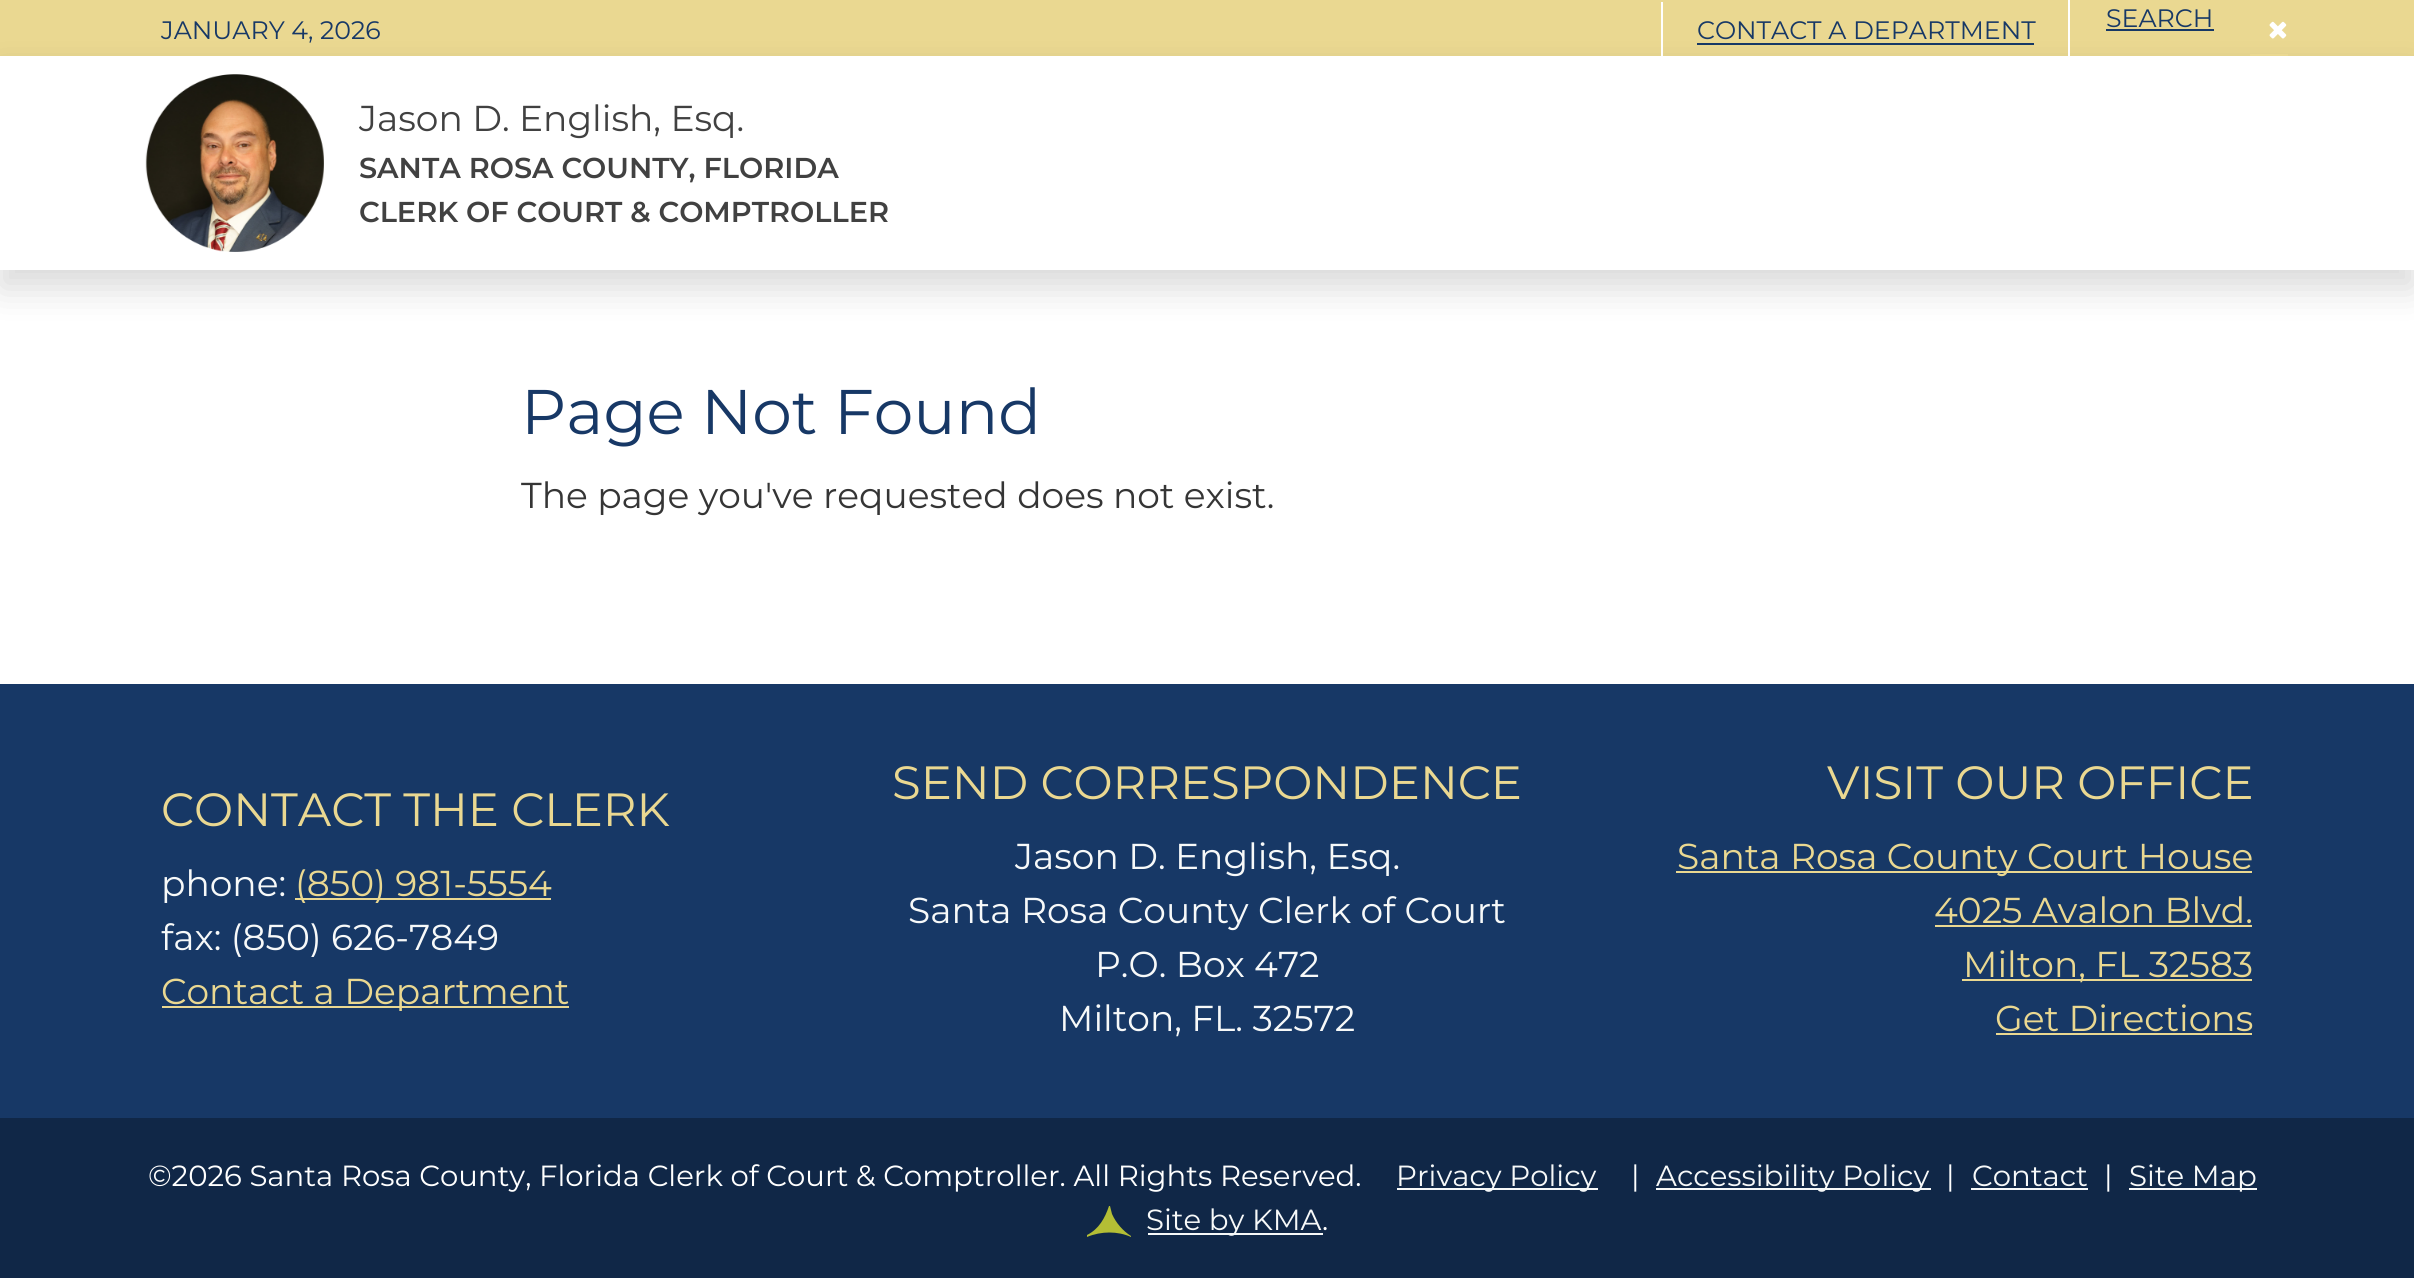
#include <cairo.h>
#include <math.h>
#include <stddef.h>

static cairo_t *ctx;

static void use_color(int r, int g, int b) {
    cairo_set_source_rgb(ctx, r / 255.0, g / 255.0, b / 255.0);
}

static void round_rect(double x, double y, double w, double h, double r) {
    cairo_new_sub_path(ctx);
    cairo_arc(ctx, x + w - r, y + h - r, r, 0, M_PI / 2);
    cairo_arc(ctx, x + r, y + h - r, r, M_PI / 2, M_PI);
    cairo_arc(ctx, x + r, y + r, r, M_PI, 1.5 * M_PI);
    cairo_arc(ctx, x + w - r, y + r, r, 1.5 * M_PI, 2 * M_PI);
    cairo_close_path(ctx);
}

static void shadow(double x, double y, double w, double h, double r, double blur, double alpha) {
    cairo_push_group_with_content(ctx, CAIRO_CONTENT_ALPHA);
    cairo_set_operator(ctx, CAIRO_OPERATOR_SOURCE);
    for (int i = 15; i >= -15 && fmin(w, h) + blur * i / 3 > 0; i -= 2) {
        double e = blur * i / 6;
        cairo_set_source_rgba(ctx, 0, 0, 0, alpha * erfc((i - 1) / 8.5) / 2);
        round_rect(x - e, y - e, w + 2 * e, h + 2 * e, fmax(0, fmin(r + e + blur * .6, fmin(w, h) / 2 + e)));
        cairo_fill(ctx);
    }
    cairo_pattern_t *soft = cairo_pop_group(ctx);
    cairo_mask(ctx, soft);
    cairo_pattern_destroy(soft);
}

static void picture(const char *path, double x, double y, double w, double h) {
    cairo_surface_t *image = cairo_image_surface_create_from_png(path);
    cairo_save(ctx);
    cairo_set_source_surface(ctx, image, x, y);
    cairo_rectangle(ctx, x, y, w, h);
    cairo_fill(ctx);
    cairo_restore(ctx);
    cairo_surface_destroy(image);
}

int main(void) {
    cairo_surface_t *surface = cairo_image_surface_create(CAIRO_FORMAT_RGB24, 2414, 1279);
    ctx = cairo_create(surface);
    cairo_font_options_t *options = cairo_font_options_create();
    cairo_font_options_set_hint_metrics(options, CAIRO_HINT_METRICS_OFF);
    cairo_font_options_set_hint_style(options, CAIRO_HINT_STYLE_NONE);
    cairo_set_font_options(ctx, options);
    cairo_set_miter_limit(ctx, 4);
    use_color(255, 255, 255);
    cairo_paint(ctx);
    use_color(234, 216, 145);
    cairo_rectangle(ctx, 0, 0, 2414, 56);
    cairo_fill(ctx);
    cairo_save(ctx);
    cairo_set_fill_rule(ctx, CAIRO_FILL_RULE_EVEN_ODD);
    cairo_new_path(ctx);
    cairo_move_to(ctx, 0, 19);
    cairo_line_to(ctx, 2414, 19);
    cairo_line_to(ctx, 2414, 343);
    cairo_line_to(ctx, 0, 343);
    cairo_close_path(ctx);
    cairo_move_to(ctx, 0, 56);
    cairo_line_to(ctx, 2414, 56);
    cairo_line_to(ctx, 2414, 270);
    cairo_line_to(ctx, 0, 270);
    cairo_close_path(ctx);
    cairo_clip(ctx);
    use_color(0, 0, 0);
    shadow(0, 74, 2414, 214, 0, 18, 0.15);
    cairo_restore(ctx);
    use_color(255, 255, 255);
    cairo_rectangle(ctx, 2068, 0, 2, 56);
    cairo_fill(ctx);
    cairo_select_font_face(ctx, "Montserrat", CAIRO_FONT_SLANT_NORMAL, CAIRO_FONT_WEIGHT_NORMAL);
    cairo_set_font_size(ctx, 25.25);
    use_color(23, 56, 102);
    cairo_move_to(ctx, 2106, 27);
    cairo_show_text(ctx, "SEARCH");
    cairo_rectangle(ctx, 2106, 29, 108, 2);
    cairo_fill(ctx);
    use_color(234, 216, 145);
    cairo_rectangle(ctx, 2250, 54, 38, 2);
    cairo_fill(ctx);
    picture("img1.png", 2269, 21, 18, 18);
    use_color(23, 56, 102);
    cairo_move_to(ctx, 161, 39);
    cairo_show_text(ctx, "JANUARY 4, 2026");
    use_color(255, 255, 255);
    cairo_rectangle(ctx, 1661, 2, 2, 54);
    cairo_fill(ctx);
    use_color(23, 56, 102);
    cairo_move_to(ctx, 1697, 39);
    cairo_show_text(ctx, "CONTACT A DEPARTMENT");
    cairo_rectangle(ctx, 1697, 43, 337, 2);
    cairo_fill(ctx);
    picture("img2.png", 145, 74, 179, 178);
    cairo_set_font_size(ctx, 36);
    use_color(65, 65, 65);
    cairo_move_to(ctx, 359, 131);
    cairo_show_text(ctx, "Jason D. English, Esq.");
    cairo_select_font_face(ctx, "Montserrat SemiBold", CAIRO_FONT_SLANT_NORMAL, CAIRO_FONT_WEIGHT_NORMAL);
    cairo_set_font_size(ctx, 28.75);
    cairo_move_to(ctx, 359, 178);
    cairo_show_text(ctx, "SANTA ROSA COUNTY, FLORIDA");
    cairo_move_to(ctx, 359, 222);
    cairo_show_text(ctx, "CLERK OF COURT & COMPTROLLER");
    cairo_select_font_face(ctx, "Montserrat", CAIRO_FONT_SLANT_NORMAL, CAIRO_FONT_WEIGHT_NORMAL);
    cairo_set_font_size(ctx, 63);
    use_color(23, 56, 102);
    cairo_move_to(ctx, 521, 434);
    cairo_show_text(ctx, "Page Not Found");
    cairo_set_font_size(ctx, 36);
    use_color(53, 53, 53);
    cairo_move_to(ctx, 521, 508);
    cairo_show_text(ctx, "The page you've requested does not exist.");
    use_color(23, 56, 102);
    cairo_rectangle(ctx, 0, 684, 2414, 434);
    cairo_fill(ctx);
    cairo_set_font_size(ctx, 46.6);
    use_color(234, 216, 145);
    cairo_move_to(ctx, 161, 826);
    cairo_show_text(ctx, "CONTACT THE CLERK");
    cairo_set_font_size(ctx, 36);
    use_color(247, 249, 249);
    cairo_move_to(ctx, 161, 896);
    cairo_show_text(ctx, "phone:");
    use_color(234, 216, 145);
    cairo_rectangle(ctx, 295, 898, 256, 2);
    cairo_fill(ctx);
    cairo_move_to(ctx, 295, 896);
    cairo_show_text(ctx, "(850) 981-5554");
    use_color(247, 249, 249);
    cairo_move_to(ctx, 161, 950);
    cairo_show_text(ctx, "fax: (850) 626-7849");
    use_color(234, 216, 145);
    cairo_rectangle(ctx, 162, 1006, 407, 2);
    cairo_fill(ctx);
    cairo_move_to(ctx, 161, 1004);
    cairo_show_text(ctx, "Contact a Department");
    cairo_set_font_size(ctx, 46.6);
    cairo_move_to(ctx, 892, 799);
    cairo_show_text(ctx, "SEND CORRESPONDENCE");
    cairo_set_font_size(ctx, 36);
    use_color(247, 249, 249);
    cairo_move_to(ctx, 1015, 869);
    cairo_show_text(ctx, "Jason D. English, Esq.");
    cairo_move_to(ctx, 908, 923);
    cairo_show_text(ctx, "Santa Rosa County Clerk of Court");
    cairo_move_to(ctx, 1095, 977);
    cairo_show_text(ctx, "P.O. Box 472");
    cairo_move_to(ctx, 1059, 1031);
    cairo_show_text(ctx, "Milton, FL. 32572");
    cairo_set_font_size(ctx, 46.6);
    use_color(234, 216, 145);
    cairo_move_to(ctx, 1827, 799);
    cairo_show_text(ctx, "VISIT OUR OFFICE");
    cairo_rectangle(ctx, 1676, 871, 576, 2);
    cairo_fill(ctx);
    cairo_set_font_size(ctx, 36);
    cairo_move_to(ctx, 1677, 869);
    cairo_show_text(ctx, "Santa Rosa County Court House");
    cairo_move_to(ctx, 1934, 923);
    cairo_show_text(ctx, "4025 Avalon Blvd.");
    cairo_rectangle(ctx, 1935, 925, 317, 2);
    cairo_fill(ctx);
    cairo_rectangle(ctx, 1962, 979, 290, 2);
    cairo_fill(ctx);
    cairo_move_to(ctx, 1963, 977);
    cairo_show_text(ctx, "Milton, FL 32583");
    cairo_move_to(ctx, 1995, 1031);
    cairo_show_text(ctx, "Get Directions");
    cairo_rectangle(ctx, 1996, 1033, 256, 2);
    cairo_fill(ctx);
    use_color(16, 39, 71);
    cairo_rectangle(ctx, 0, 1118, 2414, 160);
    cairo_fill(ctx);
    cairo_set_font_size(ctx, 29.15);
    use_color(255, 255, 255);
    cairo_move_to(ctx, 148, 1186);
    cairo_show_text(ctx, "©2026 Santa Rosa County, Florida Clerk of Court & Comptroller. All Rights Reserved.");
    use_color(247, 249, 249);
    cairo_rectangle(ctx, 1397, 1188, 201, 2);
    cairo_fill(ctx);
    cairo_move_to(ctx, 1396, 1186);
    cairo_show_text(ctx, "Privacy Policy");
    use_color(255, 255, 255);
    cairo_move_to(ctx, 1631, 1186);
    cairo_show_text(ctx, "|");
    use_color(247, 249, 249);
    cairo_rectangle(ctx, 1656, 1188, 275, 2);
    cairo_fill(ctx);
    cairo_move_to(ctx, 1656, 1186);
    cairo_show_text(ctx, "Accessibility Policy");
    use_color(255, 255, 255);
    cairo_move_to(ctx, 1946, 1186);
    cairo_show_text(ctx, "|");
    use_color(247, 249, 249);
    cairo_move_to(ctx, 1972, 1186);
    cairo_show_text(ctx, "Contact");
    cairo_rectangle(ctx, 1971, 1188, 117, 2);
    cairo_fill(ctx);
    use_color(255, 255, 255);
    cairo_move_to(ctx, 2104, 1186);
    cairo_show_text(ctx, "|");
    use_color(247, 249, 249);
    cairo_rectangle(ctx, 2129, 1188, 128, 2);
    cairo_fill(ctx);
    cairo_move_to(ctx, 2129, 1186);
    cairo_show_text(ctx, "Site Map");
    use_color(180, 190, 53);
    cairo_new_path(ctx);
    cairo_move_to(ctx, 1110, 1206);
    cairo_line_to(ctx, 1112, 1214);
    cairo_curve_to(ctx, 1116, 1223, 1123, 1231, 1131, 1236);
    cairo_line_to(ctx, 1131, 1237);
    cairo_curve_to(ctx, 1118, 1231, 1101, 1231, 1087, 1237);
    cairo_line_to(ctx, 1087, 1235);
    cairo_curve_to(ctx, 1099, 1229, 1105, 1218, 1109, 1206);
    cairo_close_path(ctx);
    cairo_fill(ctx);
    use_color(247, 249, 249);
    cairo_rectangle(ctx, 1148, 1233, 175, 2);
    cairo_fill(ctx);
    cairo_move_to(ctx, 1146, 1230);
    cairo_show_text(ctx, "Site by KMA");
    use_color(255, 255, 255);
    cairo_move_to(ctx, 1322, 1230);
    cairo_show_text(ctx, ".");
    cairo_surface_write_to_png(surface, "result.png");
    cairo_font_options_destroy(options);
    cairo_destroy(ctx);
    cairo_surface_destroy(surface);
    return 0;
}
